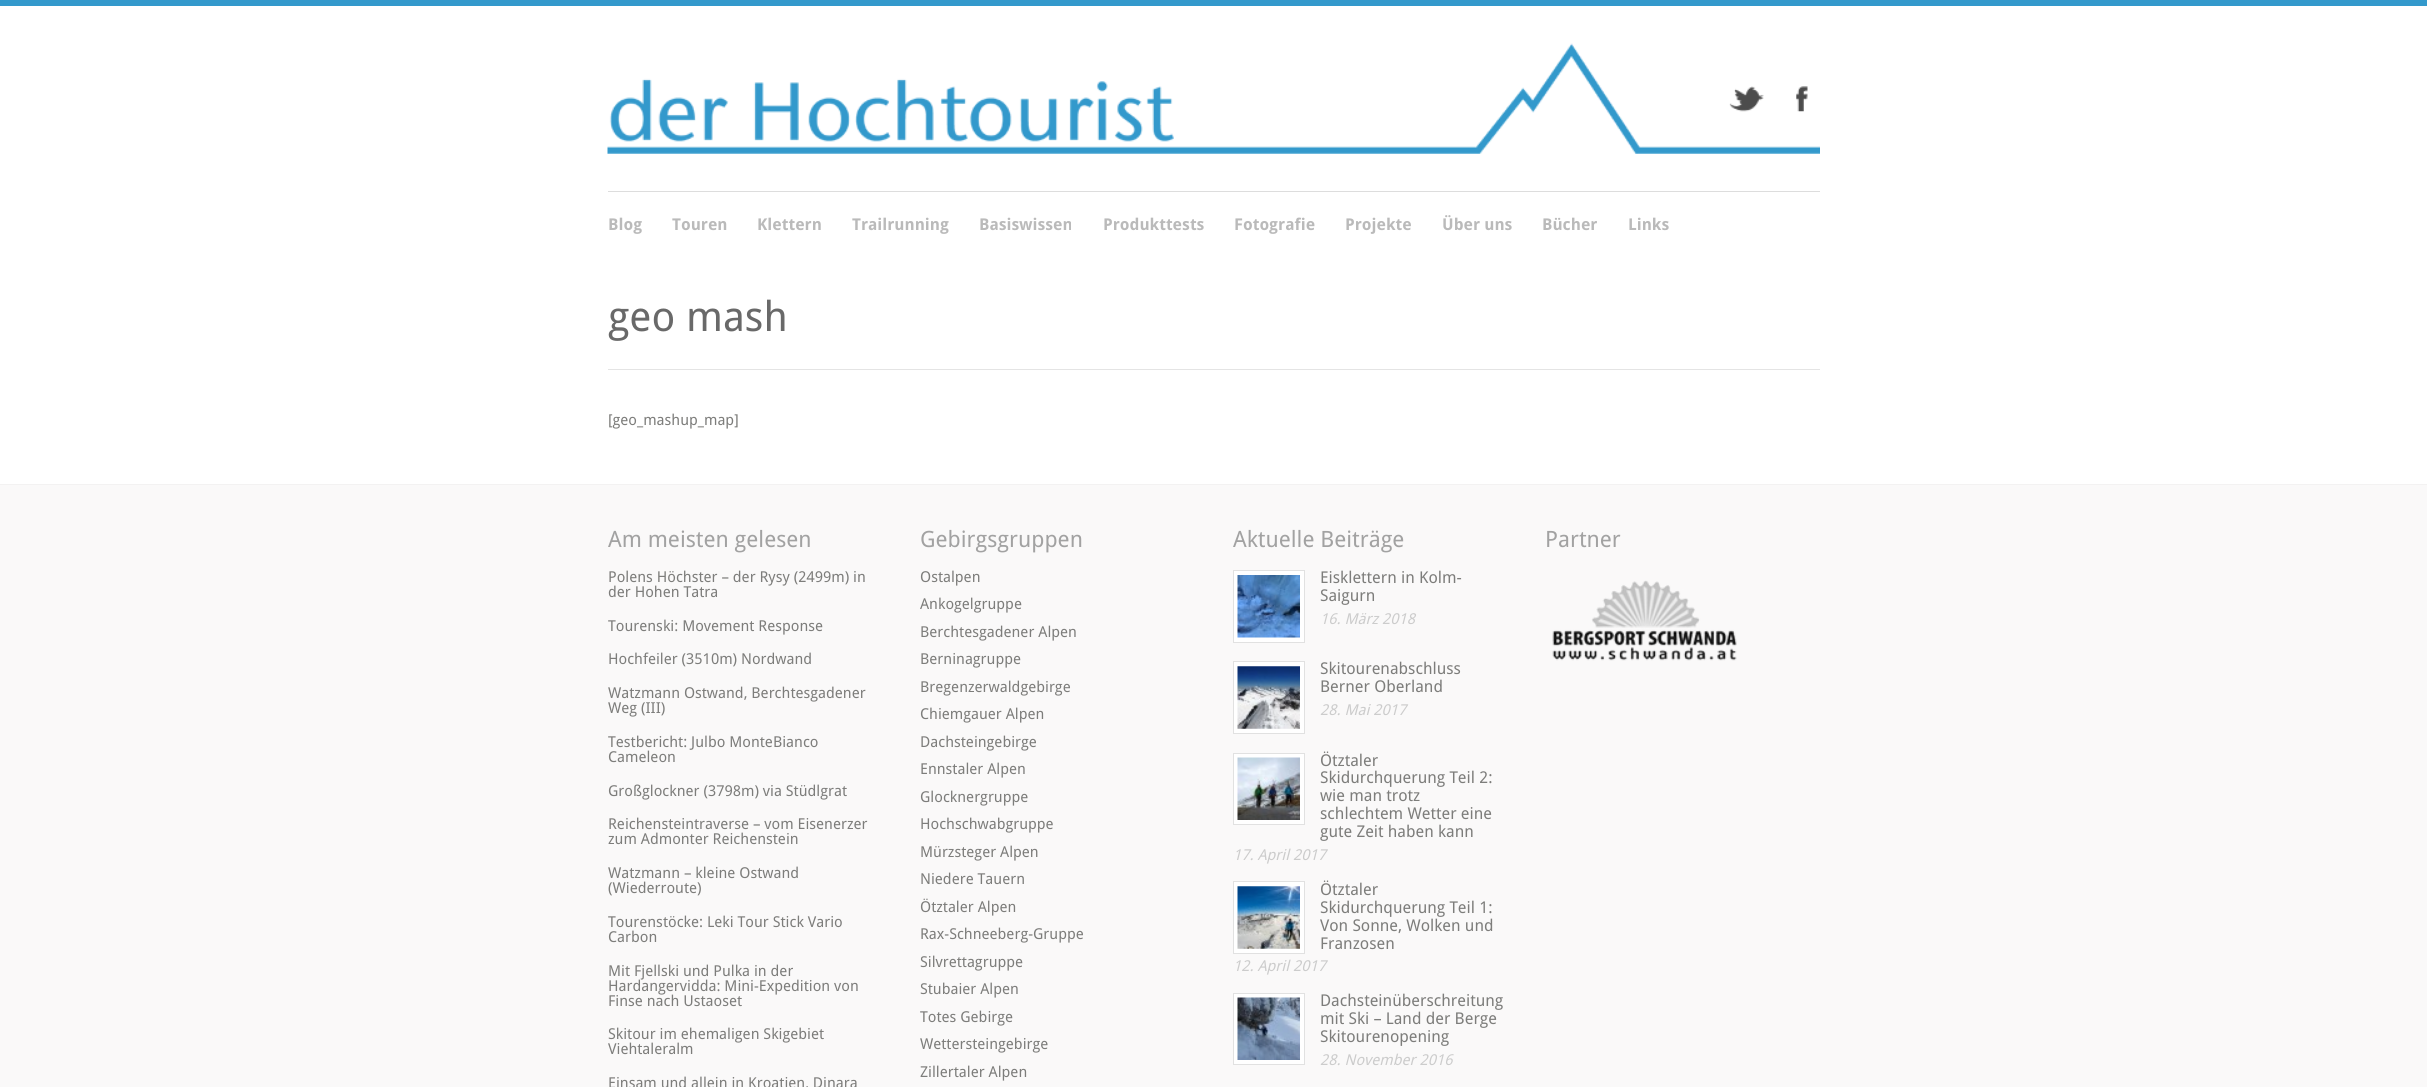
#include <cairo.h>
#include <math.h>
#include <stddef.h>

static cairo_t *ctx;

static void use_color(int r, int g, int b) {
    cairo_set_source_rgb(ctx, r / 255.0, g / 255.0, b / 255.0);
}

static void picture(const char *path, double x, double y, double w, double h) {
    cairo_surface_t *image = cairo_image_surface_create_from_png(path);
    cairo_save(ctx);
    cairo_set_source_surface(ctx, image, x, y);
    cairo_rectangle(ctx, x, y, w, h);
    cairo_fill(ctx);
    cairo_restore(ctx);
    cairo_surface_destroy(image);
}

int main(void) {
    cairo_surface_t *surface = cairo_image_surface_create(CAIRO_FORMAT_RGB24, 2427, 1087);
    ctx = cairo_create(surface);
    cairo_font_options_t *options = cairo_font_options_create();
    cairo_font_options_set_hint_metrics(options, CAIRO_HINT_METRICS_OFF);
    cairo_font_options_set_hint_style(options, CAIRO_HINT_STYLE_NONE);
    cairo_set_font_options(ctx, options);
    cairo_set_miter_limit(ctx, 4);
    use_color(51, 153, 204);
    cairo_paint(ctx);
    use_color(255, 255, 255);
    cairo_rectangle(ctx, 0, 6, 2427, 478);
    cairo_fill(ctx);
    picture("img1.png", 607, 43, 1213, 111);
    picture("img2.png", 1729, 86, 35, 26);
    picture("img3.png", 1796, 86, 12, 26);
    use_color(221, 221, 221);
    cairo_rectangle(ctx, 608, 191, 1212, 1);
    cairo_fill(ctx);
    cairo_select_font_face(ctx, "Droid Sans", CAIRO_FONT_SLANT_NORMAL, CAIRO_FONT_WEIGHT_BOLD);
    cairo_set_font_size(ctx, 16.25);
    use_color(186, 186, 186);
    cairo_move_to(ctx, 608, 230);
    cairo_show_text(ctx, "Blog");
    cairo_move_to(ctx, 672, 230);
    cairo_show_text(ctx, "Touren");
    cairo_move_to(ctx, 757, 230);
    cairo_show_text(ctx, "Klettern");
    cairo_move_to(ctx, 852, 230);
    cairo_show_text(ctx, "Trailrunning");
    cairo_move_to(ctx, 979, 230);
    cairo_show_text(ctx, "Basiswissen");
    cairo_move_to(ctx, 1103, 230);
    cairo_show_text(ctx, "Produkttests");
    cairo_move_to(ctx, 1234, 230);
    cairo_show_text(ctx, "Fotografie");
    cairo_move_to(ctx, 1345, 230);
    cairo_show_text(ctx, "Projekte");
    cairo_move_to(ctx, 1442, 230);
    cairo_show_text(ctx, "Über uns");
    cairo_move_to(ctx, 1542, 230);
    cairo_show_text(ctx, "Bücher");
    cairo_move_to(ctx, 1628, 230);
    cairo_show_text(ctx, "Links");
    use_color(228, 228, 228);
    cairo_rectangle(ctx, 608, 369, 1212, 1);
    cairo_fill(ctx);
    cairo_select_font_face(ctx, "Droid Sans", CAIRO_FONT_SLANT_NORMAL, CAIRO_FONT_WEIGHT_NORMAL);
    cairo_set_font_size(ctx, 41.25);
    use_color(105, 105, 105);
    cairo_move_to(ctx, 608, 331);
    cairo_show_text(ctx, "geo mash");
    cairo_set_font_size(ctx, 15);
    use_color(125, 125, 123);
    cairo_move_to(ctx, 608, 425);
    cairo_show_text(ctx, "[geo_mashup_map]");
    use_color(250, 249, 249);
    cairo_rectangle(ctx, 0, 485, 2427, 602);
    cairo_fill(ctx);
    use_color(243, 242, 242);
    cairo_rectangle(ctx, 0, 484, 2427, 1);
    cairo_fill(ctx);
    cairo_set_font_size(ctx, 22.5);
    use_color(162, 162, 162);
    cairo_move_to(ctx, 608, 547);
    cairo_show_text(ctx, "Am meisten gelesen");
    cairo_set_font_size(ctx, 15);
    use_color(125, 125, 123);
    cairo_move_to(ctx, 608, 582);
    cairo_show_text(ctx, "Polens Höchster – der Rysy (2499m) in");
    cairo_move_to(ctx, 608, 597);
    cairo_show_text(ctx, "der Hohen Tatra");
    cairo_move_to(ctx, 608, 631);
    cairo_show_text(ctx, "Tourenski: Movement Response");
    cairo_move_to(ctx, 608, 664);
    cairo_show_text(ctx, "Hochfeiler (3510m) Nordwand");
    cairo_move_to(ctx, 608, 698);
    cairo_show_text(ctx, "Watzmann Ostwand, Berchtesgadener");
    cairo_move_to(ctx, 608, 713);
    cairo_show_text(ctx, "Weg (III)");
    cairo_move_to(ctx, 608, 747);
    cairo_show_text(ctx, "Testbericht: Julbo MonteBianco");
    cairo_move_to(ctx, 608, 762);
    cairo_show_text(ctx, "Cameleon");
    cairo_move_to(ctx, 608, 796);
    cairo_show_text(ctx, "Großglockner (3798m) via Stüdlgrat");
    cairo_move_to(ctx, 608, 829);
    cairo_show_text(ctx, "Reichensteintraverse – vom Eisenerzer");
    cairo_move_to(ctx, 608, 844);
    cairo_show_text(ctx, "zum Admonter Reichenstein");
    cairo_move_to(ctx, 608, 878);
    cairo_show_text(ctx, "Watzmann – kleine Ostwand");
    cairo_move_to(ctx, 608, 893);
    cairo_show_text(ctx, "(Wiederroute)");
    cairo_move_to(ctx, 608, 927);
    cairo_show_text(ctx, "Tourenstöcke: Leki Tour Stick Vario");
    cairo_move_to(ctx, 608, 942);
    cairo_show_text(ctx, "Carbon");
    cairo_move_to(ctx, 608, 976);
    cairo_show_text(ctx, "Mit Fjellski und Pulka in der");
    cairo_move_to(ctx, 608, 991);
    cairo_show_text(ctx, "Hardangervidda: Mini-Expedition von");
    cairo_move_to(ctx, 608, 1006);
    cairo_show_text(ctx, "Finse nach Ustaoset");
    cairo_move_to(ctx, 608, 1039);
    cairo_show_text(ctx, "Skitour im ehemaligen Skigebiet");
    cairo_move_to(ctx, 608, 1054);
    cairo_show_text(ctx, "Viehtaleralm");
    cairo_move_to(ctx, 608, 1088);
    cairo_show_text(ctx, "Einsam und allein in Kroatien, Dinara");
    cairo_set_font_size(ctx, 22.5);
    use_color(162, 162, 162);
    cairo_move_to(ctx, 920, 547);
    cairo_show_text(ctx, "Gebirgsgruppen");
    cairo_set_font_size(ctx, 15);
    use_color(125, 125, 123);
    cairo_move_to(ctx, 920, 582);
    cairo_show_text(ctx, "Ostalpen");
    cairo_move_to(ctx, 920, 609);
    cairo_show_text(ctx, "Ankogelgruppe");
    cairo_move_to(ctx, 920, 637);
    cairo_show_text(ctx, "Berchtesgadener Alpen");
    cairo_move_to(ctx, 920, 664);
    cairo_show_text(ctx, "Berninagruppe");
    cairo_move_to(ctx, 920, 692);
    cairo_show_text(ctx, "Bregenzerwaldgebirge");
    cairo_move_to(ctx, 920, 719);
    cairo_show_text(ctx, "Chiemgauer Alpen");
    cairo_move_to(ctx, 920, 747);
    cairo_show_text(ctx, "Dachsteingebirge");
    cairo_move_to(ctx, 920, 774);
    cairo_show_text(ctx, "Ennstaler Alpen");
    cairo_move_to(ctx, 920, 802);
    cairo_show_text(ctx, "Glocknergruppe");
    cairo_move_to(ctx, 920, 829);
    cairo_show_text(ctx, "Hochschwabgruppe");
    cairo_move_to(ctx, 920, 857);
    cairo_show_text(ctx, "Mürzsteger Alpen");
    cairo_move_to(ctx, 920, 884);
    cairo_show_text(ctx, "Niedere Tauern");
    cairo_move_to(ctx, 920, 912);
    cairo_show_text(ctx, "Ötztaler Alpen");
    cairo_move_to(ctx, 920, 939);
    cairo_show_text(ctx, "Rax-Schneeberg-Gruppe");
    cairo_move_to(ctx, 920, 967);
    cairo_show_text(ctx, "Silvrettagruppe");
    cairo_move_to(ctx, 920, 994);
    cairo_show_text(ctx, "Stubaier Alpen");
    cairo_move_to(ctx, 920, 1022);
    cairo_show_text(ctx, "Totes Gebirge");
    cairo_move_to(ctx, 920, 1049);
    cairo_show_text(ctx, "Wettersteingebirge");
    cairo_move_to(ctx, 920, 1077);
    cairo_show_text(ctx, "Zillertaler Alpen");
    cairo_set_font_size(ctx, 22.5);
    use_color(162, 162, 162);
    cairo_move_to(ctx, 1233, 547);
    cairo_show_text(ctx, "Aktuelle Beiträge");
    use_color(255, 255, 255);
    cairo_rectangle(ctx, 1233.5, 570.5, 71, 72);
    cairo_fill_preserve(ctx);
    use_color(225, 225, 225);
    cairo_set_line_width(ctx, 1);
    cairo_stroke(ctx);
    picture("img4.png", 1237, 575, 63, 63);
    cairo_set_font_size(ctx, 16.25);
    use_color(125, 125, 123);
    cairo_move_to(ctx, 1320, 583);
    cairo_show_text(ctx, "Eisklettern in Kolm-");
    cairo_move_to(ctx, 1320, 601);
    cairo_show_text(ctx, "Saigurn");
    cairo_select_font_face(ctx, "Droid Sans", CAIRO_FONT_SLANT_ITALIC, CAIRO_FONT_WEIGHT_NORMAL);
    cairo_set_font_size(ctx, 15);
    use_color(204, 204, 204);
    cairo_move_to(ctx, 1320, 624);
    cairo_show_text(ctx, "16. März 2018");
    use_color(255, 255, 255);
    cairo_rectangle(ctx, 1233.5, 661.5, 71, 72);
    cairo_fill_preserve(ctx);
    use_color(225, 225, 225);
    cairo_stroke(ctx);
    picture("img5.png", 1237, 666, 63, 63);
    cairo_select_font_face(ctx, "Droid Sans", CAIRO_FONT_SLANT_NORMAL, CAIRO_FONT_WEIGHT_NORMAL);
    cairo_set_font_size(ctx, 16.25);
    use_color(125, 125, 123);
    cairo_move_to(ctx, 1320, 674);
    cairo_show_text(ctx, "Skitourenabschluss");
    cairo_move_to(ctx, 1320, 692);
    cairo_show_text(ctx, "Berner Oberland");
    cairo_select_font_face(ctx, "Droid Sans", CAIRO_FONT_SLANT_ITALIC, CAIRO_FONT_WEIGHT_NORMAL);
    cairo_set_font_size(ctx, 15);
    use_color(204, 204, 204);
    cairo_move_to(ctx, 1320, 715);
    cairo_show_text(ctx, "28. Mai 2017");
    use_color(255, 255, 255);
    cairo_rectangle(ctx, 1233.5, 753.5, 71, 71);
    cairo_fill_preserve(ctx);
    use_color(225, 225, 225);
    cairo_stroke(ctx);
    picture("img6.png", 1237, 757, 63, 63);
    cairo_select_font_face(ctx, "Droid Sans", CAIRO_FONT_SLANT_NORMAL, CAIRO_FONT_WEIGHT_NORMAL);
    cairo_set_font_size(ctx, 16.25);
    use_color(125, 125, 123);
    cairo_move_to(ctx, 1320, 766);
    cairo_show_text(ctx, "Ötztaler");
    cairo_move_to(ctx, 1320, 783);
    cairo_show_text(ctx, "Skidurchquerung Teil 2:");
    cairo_move_to(ctx, 1320, 801);
    cairo_show_text(ctx, "wie man trotz");
    cairo_move_to(ctx, 1320, 819);
    cairo_show_text(ctx, "schlechtem Wetter eine");
    cairo_move_to(ctx, 1320, 837);
    cairo_show_text(ctx, "gute Zeit haben kann");
    cairo_select_font_face(ctx, "Droid Sans", CAIRO_FONT_SLANT_ITALIC, CAIRO_FONT_WEIGHT_NORMAL);
    cairo_set_font_size(ctx, 15);
    use_color(204, 204, 204);
    cairo_move_to(ctx, 1233, 860);
    cairo_show_text(ctx, "17. April 2017");
    use_color(255, 255, 255);
    cairo_rectangle(ctx, 1233.5, 881.5, 71, 72);
    cairo_fill_preserve(ctx);
    use_color(225, 225, 225);
    cairo_stroke(ctx);
    picture("img7.png", 1237, 886, 63, 63);
    cairo_select_font_face(ctx, "Droid Sans", CAIRO_FONT_SLANT_NORMAL, CAIRO_FONT_WEIGHT_NORMAL);
    cairo_set_font_size(ctx, 16.25);
    use_color(125, 125, 123);
    cairo_move_to(ctx, 1320, 895);
    cairo_show_text(ctx, "Ötztaler");
    cairo_move_to(ctx, 1320, 913);
    cairo_show_text(ctx, "Skidurchquerung Teil 1:");
    cairo_move_to(ctx, 1320, 931);
    cairo_show_text(ctx, "Von Sonne, Wolken und");
    cairo_move_to(ctx, 1320, 949);
    cairo_show_text(ctx, "Franzosen");
    cairo_select_font_face(ctx, "Droid Sans", CAIRO_FONT_SLANT_ITALIC, CAIRO_FONT_WEIGHT_NORMAL);
    cairo_set_font_size(ctx, 15);
    use_color(204, 204, 204);
    cairo_move_to(ctx, 1233, 971);
    cairo_show_text(ctx, "12. April 2017");
    use_color(255, 255, 255);
    cairo_rectangle(ctx, 1233.5, 993.5, 71, 71);
    cairo_fill_preserve(ctx);
    use_color(225, 225, 225);
    cairo_stroke(ctx);
    picture("img8.png", 1237, 997, 63, 63);
    cairo_select_font_face(ctx, "Droid Sans", CAIRO_FONT_SLANT_NORMAL, CAIRO_FONT_WEIGHT_NORMAL);
    cairo_set_font_size(ctx, 16.25);
    use_color(125, 125, 123);
    cairo_move_to(ctx, 1320, 1006);
    cairo_show_text(ctx, "Dachsteinüberschreitung");
    cairo_move_to(ctx, 1320, 1024);
    cairo_show_text(ctx, "mit Ski – Land der Berge");
    cairo_move_to(ctx, 1320, 1042);
    cairo_show_text(ctx, "Skitourenopening");
    cairo_select_font_face(ctx, "Droid Sans", CAIRO_FONT_SLANT_ITALIC, CAIRO_FONT_WEIGHT_NORMAL);
    cairo_set_font_size(ctx, 15);
    use_color(204, 204, 204);
    cairo_move_to(ctx, 1320, 1065);
    cairo_show_text(ctx, "28. November 2016");
    cairo_select_font_face(ctx, "Droid Sans", CAIRO_FONT_SLANT_NORMAL, CAIRO_FONT_WEIGHT_NORMAL);
    cairo_set_font_size(ctx, 22.5);
    use_color(162, 162, 162);
    cairo_move_to(ctx, 1545, 547);
    cairo_show_text(ctx, "Partner");
    picture("img9.png", 1552, 580, 185, 81);
    cairo_surface_write_to_png(surface, "result.png");
    cairo_font_options_destroy(options);
    cairo_destroy(ctx);
    cairo_surface_destroy(surface);
    return 0;
}
